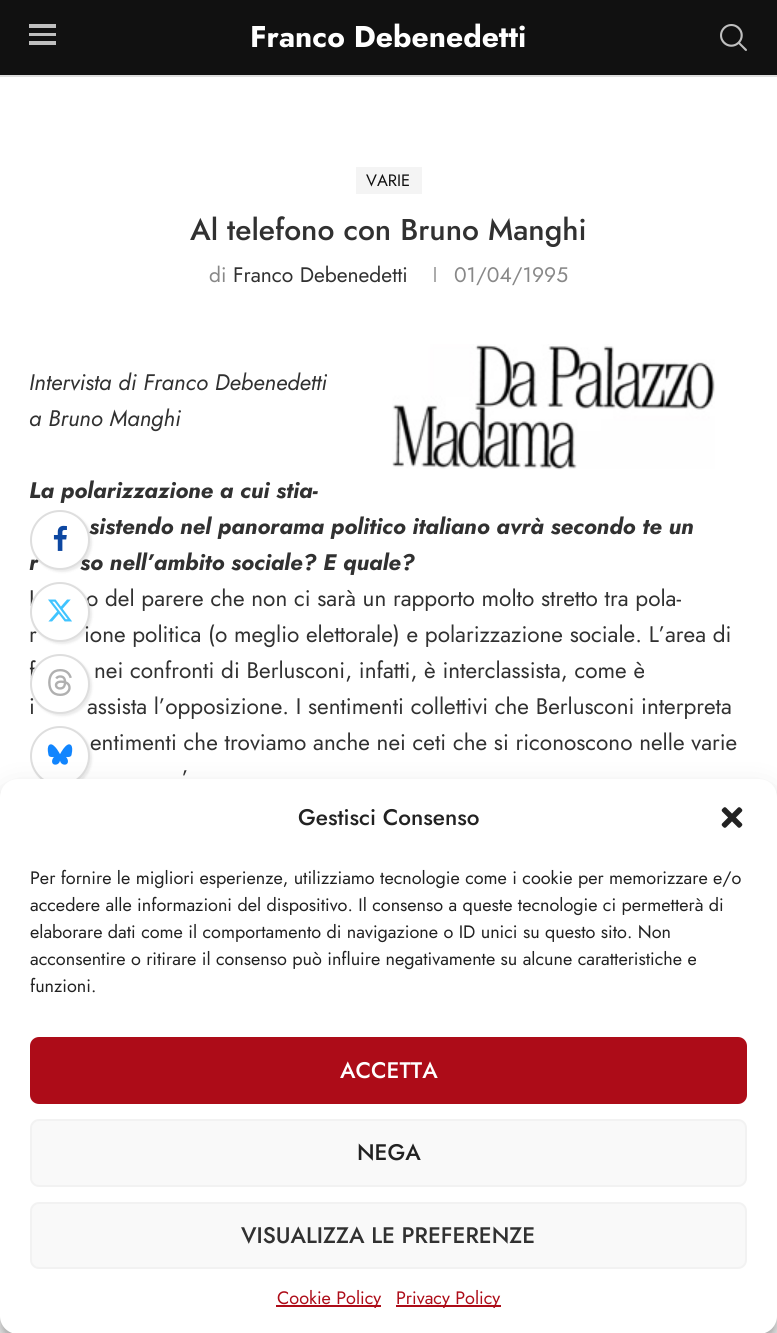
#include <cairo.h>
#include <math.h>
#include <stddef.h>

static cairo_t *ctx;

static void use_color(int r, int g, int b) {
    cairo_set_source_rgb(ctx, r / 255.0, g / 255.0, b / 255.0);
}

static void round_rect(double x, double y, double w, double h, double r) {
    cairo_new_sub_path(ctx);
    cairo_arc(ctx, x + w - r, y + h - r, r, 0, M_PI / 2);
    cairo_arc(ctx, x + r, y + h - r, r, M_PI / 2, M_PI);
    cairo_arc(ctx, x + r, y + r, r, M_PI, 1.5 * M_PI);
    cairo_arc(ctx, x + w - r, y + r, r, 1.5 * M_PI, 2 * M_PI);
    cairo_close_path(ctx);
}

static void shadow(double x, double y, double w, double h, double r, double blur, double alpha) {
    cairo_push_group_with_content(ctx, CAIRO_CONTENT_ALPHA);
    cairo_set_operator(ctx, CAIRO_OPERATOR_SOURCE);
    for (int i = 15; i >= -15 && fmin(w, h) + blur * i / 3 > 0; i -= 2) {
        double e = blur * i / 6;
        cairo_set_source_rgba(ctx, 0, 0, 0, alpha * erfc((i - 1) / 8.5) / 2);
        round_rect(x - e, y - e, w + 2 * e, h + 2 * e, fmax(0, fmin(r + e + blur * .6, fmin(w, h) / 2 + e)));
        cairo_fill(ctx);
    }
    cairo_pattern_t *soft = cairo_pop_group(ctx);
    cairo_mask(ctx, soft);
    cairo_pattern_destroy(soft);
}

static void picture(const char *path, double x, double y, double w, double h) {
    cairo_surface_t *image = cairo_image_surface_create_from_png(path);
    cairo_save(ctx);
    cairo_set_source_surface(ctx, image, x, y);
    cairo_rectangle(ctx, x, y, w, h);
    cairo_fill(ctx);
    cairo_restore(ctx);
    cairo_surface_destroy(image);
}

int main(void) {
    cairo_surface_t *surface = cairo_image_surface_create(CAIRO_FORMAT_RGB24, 777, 1333);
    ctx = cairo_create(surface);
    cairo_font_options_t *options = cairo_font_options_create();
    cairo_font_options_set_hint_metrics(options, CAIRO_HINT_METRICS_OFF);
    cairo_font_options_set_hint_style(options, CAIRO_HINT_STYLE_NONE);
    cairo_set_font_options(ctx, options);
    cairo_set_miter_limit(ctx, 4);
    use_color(255, 255, 255);
    cairo_paint(ctx);
    use_color(17, 17, 17);
    cairo_rectangle(ctx, 0, 0, 777, 75);
    cairo_fill(ctx);
    use_color(222, 222, 222);
    cairo_rectangle(ctx, 0, 75, 777, 2);
    cairo_fill(ctx);
    use_color(191, 191, 191);
    cairo_rectangle(ctx, 29, 24, 27, 4);
    cairo_fill(ctx);
    cairo_rectangle(ctx, 29, 33, 27, 3);
    cairo_fill(ctx);
    cairo_rectangle(ctx, 29, 41, 27, 4);
    cairo_fill(ctx);
    cairo_select_font_face(ctx, "Jost", CAIRO_FONT_SLANT_NORMAL, CAIRO_FONT_WEIGHT_BOLD);
    cairo_set_font_size(ctx, 30);
    use_color(255, 255, 255);
    cairo_move_to(ctx, 250, 47);
    cairo_show_text(ctx, "Franco Debenedetti");
    picture("img1.png", 720, 24, 27, 27);
    use_color(244, 244, 244);
    cairo_rectangle(ctx, 356, 167, 66, 27);
    cairo_fill(ctx);
    cairo_select_font_face(ctx, "Jost", CAIRO_FONT_SLANT_NORMAL, CAIRO_FONT_WEIGHT_NORMAL);
    cairo_set_font_size(ctx, 16.5);
    use_color(17, 17, 17);
    cairo_move_to(ctx, 366, 186);
    cairo_show_text(ctx, "VARIE");
    cairo_select_font_face(ctx, "Jost Medium", CAIRO_FONT_SLANT_NORMAL, CAIRO_FONT_WEIGHT_NORMAL);
    cairo_set_font_size(ctx, 30);
    use_color(49, 49, 49);
    cairo_move_to(ctx, 190, 240);
    cairo_show_text(ctx, "Al telefono con Bruno Manghi");
    cairo_select_font_face(ctx, "Jost", CAIRO_FONT_SLANT_NORMAL, CAIRO_FONT_WEIGHT_NORMAL);
    cairo_set_font_size(ctx, 21);
    use_color(136, 136, 136);
    cairo_move_to(ctx, 209, 282);
    cairo_show_text(ctx, "di");
    use_color(49, 49, 49);
    cairo_move_to(ctx, 233, 282);
    cairo_show_text(ctx, "Franco Debenedetti");
    use_color(172, 172, 172);
    cairo_rectangle(ctx, 434, 267, 2, 15);
    cairo_fill(ctx);
    use_color(136, 136, 136);
    cairo_move_to(ctx, 454, 282);
    cairo_show_text(ctx, "01/04/1995");
    cairo_select_font_face(ctx, "Jost", CAIRO_FONT_SLANT_ITALIC, CAIRO_FONT_WEIGHT_NORMAL);
    cairo_set_font_size(ctx, 22.5);
    use_color(49, 49, 49);
    cairo_move_to(ctx, 29, 390);
    cairo_show_text(ctx, "Intervista di Franco Debenedetti");
    picture("img2.png", 392, 344, 323, 126);
    cairo_move_to(ctx, 29, 426);
    cairo_show_text(ctx, "a Bruno Manghi");
    cairo_select_font_face(ctx, "Jost", CAIRO_FONT_SLANT_ITALIC, CAIRO_FONT_WEIGHT_BOLD);
    cairo_move_to(ctx, 29, 498);
    cairo_show_text(ctx, "La polarizzazione a cui stia-");
    cairo_move_to(ctx, 89, 534);
    cairo_show_text(ctx, "sistendo nel panorama politico italiano avrà secondo te un");
    cairo_move_to(ctx, 29, 570);
    cairo_show_text(ctx, "r");
    cairo_move_to(ctx, 80, 570);
    cairo_show_text(ctx, "so nell’ambito sociale? E quale?");
    cairo_select_font_face(ctx, "Jost", CAIRO_FONT_SLANT_NORMAL, CAIRO_FONT_WEIGHT_NORMAL);
    cairo_move_to(ctx, 29, 606);
    cairo_show_text(ctx, "I");
    cairo_move_to(ctx, 86, 606);
    cairo_show_text(ctx, "o del parere che non ci sarà un rapporto molto stretto tra pola-");
    cairo_move_to(ctx, 29, 642);
    cairo_show_text(ctx, "r");
    cairo_move_to(ctx, 84, 642);
    cairo_show_text(ctx, "ione politica (o meglio elettorale) e polarizzazione sociale. L’area di");
    cairo_move_to(ctx, 29, 678);
    cairo_show_text(ctx, "f");
    cairo_move_to(ctx, 94, 678);
    cairo_show_text(ctx, "nei confronti di Berlusconi, infatti, è interclassista, come è");
    cairo_move_to(ctx, 29, 714);
    cairo_show_text(ctx, "i");
    cairo_move_to(ctx, 87, 714);
    cairo_show_text(ctx, "assista l’opposizione. I sentimenti collettivi che Berlusconi interpreta");
    cairo_move_to(ctx, 90, 750);
    cairo_show_text(ctx, "entimenti che troviamo anche nei ceti che si riconoscono nelle varie");
    cairo_move_to(ctx, 182, 786);
    cairo_show_text(ctx, "’");
    use_color(55, 55, 55);
    shadow(32, 512, 60, 60, 30, 1, 0.1);
    use_color(255, 255, 255);
    cairo_arc(ctx, 60, 540, 29, 0, 2 * M_PI);
    cairo_fill_preserve(ctx);
    use_color(222, 222, 222);
    cairo_stroke(ctx);
    picture("img3.png", 53, 525, 14, 26);
    use_color(55, 55, 55);
    shadow(32, 584, 60, 60, 30, 1, 0.1);
    use_color(255, 255, 255);
    cairo_arc(ctx, 60, 612, 29, 0, 2 * M_PI);
    cairo_fill_preserve(ctx);
    use_color(222, 222, 222);
    cairo_stroke(ctx);
    picture("img4.png", 48, 599, 24, 23);
    use_color(55, 55, 55);
    shadow(32, 656, 60, 60, 30, 1, 0.1);
    use_color(255, 255, 255);
    cairo_arc(ctx, 60, 684, 29, 0, 2 * M_PI);
    cairo_fill_preserve(ctx);
    use_color(222, 222, 222);
    cairo_stroke(ctx);
    picture("img5.png", 48, 669, 24, 27);
    use_color(55, 55, 55);
    shadow(32, 728, 60, 60, 30, 1, 0.1);
    use_color(255, 255, 255);
    cairo_arc(ctx, 60, 756, 29, 0, 2 * M_PI);
    cairo_fill_preserve(ctx);
    use_color(222, 222, 222);
    cairo_stroke(ctx);
    picture("img6.png", 47, 744, 26, 21);
    use_color(0, 0, 0);
    shadow(0, 788, 777, 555, 18, 4.5, 0.23);
    shadow(0, 794, 777, 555, 18, 15, 0.19);
    use_color(255, 255, 255);
    round_rect(0, 779, 777, 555, 18);
    cairo_fill(ctx);
    cairo_select_font_face(ctx, "Jost Medium", CAIRO_FONT_SLANT_NORMAL, CAIRO_FONT_WEIGHT_NORMAL);
    use_color(34, 34, 34);
    cairo_move_to(ctx, 298, 825);
    cairo_show_text(ctx, "Gestisci Consenso");
    picture("img7.png", 721, 807, 22, 21);
    cairo_select_font_face(ctx, "Jost", CAIRO_FONT_SLANT_NORMAL, CAIRO_FONT_WEIGHT_NORMAL);
    cairo_set_font_size(ctx, 18);
    cairo_move_to(ctx, 30, 884);
    cairo_show_text(ctx, "Per fornire le migliori esperienze, utilizziamo tecnologie come i cookie per memorizzare e/o");
    cairo_move_to(ctx, 30, 911);
    cairo_show_text(ctx, "accedere alle informazioni del dispositivo. Il consenso a queste tecnologie ci permetterà di");
    cairo_move_to(ctx, 30, 938);
    cairo_show_text(ctx, "elaborare dati come il comportamento di navigazione o ID unici su questo sito. Non");
    cairo_move_to(ctx, 30, 965);
    cairo_show_text(ctx, "acconsentire o ritirare il consenso può influire negativamente su alcune caratteristiche e");
    cairo_move_to(ctx, 30, 992);
    cairo_show_text(ctx, "funzioni.");
    use_color(173, 12, 24);
    round_rect(31, 1038, 715, 65, 8);
    cairo_fill_preserve(ctx);
    cairo_stroke(ctx);
    cairo_select_font_face(ctx, "Jost Medium", CAIRO_FONT_SLANT_NORMAL, CAIRO_FONT_WEIGHT_NORMAL);
    cairo_set_font_size(ctx, 22.5);
    use_color(255, 255, 255);
    cairo_move_to(ctx, 340, 1078);
    cairo_show_text(ctx, "ACCETTA");
    use_color(249, 249, 249);
    round_rect(31, 1120, 715, 66, 8);
    cairo_fill_preserve(ctx);
    use_color(242, 242, 242);
    cairo_stroke(ctx);
    use_color(34, 34, 34);
    cairo_move_to(ctx, 357, 1160);
    cairo_show_text(ctx, "NEGA");
    use_color(249, 249, 249);
    round_rect(31, 1203, 715, 65, 8);
    cairo_fill_preserve(ctx);
    use_color(242, 242, 242);
    cairo_stroke(ctx);
    use_color(49, 49, 49);
    cairo_move_to(ctx, 241, 1243);
    cairo_show_text(ctx, "VISUALIZZA LE PREFERENZE");
    use_color(173, 12, 24);
    cairo_rectangle(ctx, 276, 1305, 105, 2);
    cairo_fill(ctx);
    cairo_select_font_face(ctx, "Jost", CAIRO_FONT_SLANT_NORMAL, CAIRO_FONT_WEIGHT_NORMAL);
    cairo_set_font_size(ctx, 18);
    cairo_move_to(ctx, 277, 1304);
    cairo_show_text(ctx, "Cookie Policy");
    cairo_rectangle(ctx, 396, 1305, 105, 2);
    cairo_fill(ctx);
    cairo_move_to(ctx, 396, 1304);
    cairo_show_text(ctx, "Privacy Policy");
    cairo_surface_write_to_png(surface, "result.png");
    cairo_font_options_destroy(options);
    cairo_destroy(ctx);
    cairo_surface_destroy(surface);
    return 0;
}
